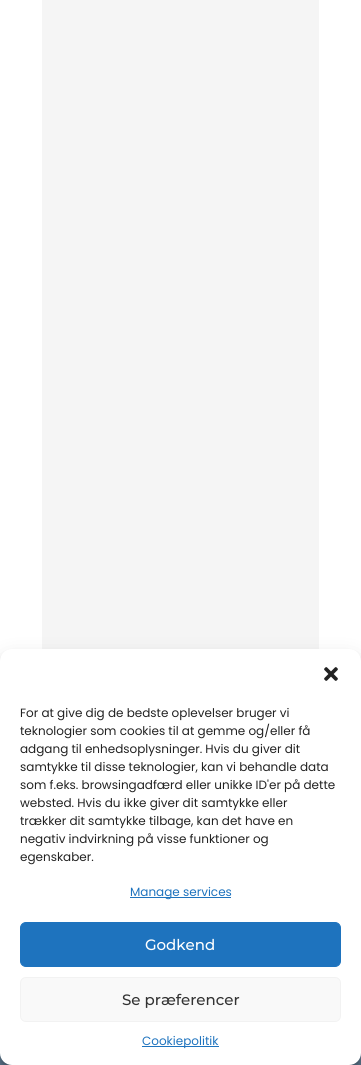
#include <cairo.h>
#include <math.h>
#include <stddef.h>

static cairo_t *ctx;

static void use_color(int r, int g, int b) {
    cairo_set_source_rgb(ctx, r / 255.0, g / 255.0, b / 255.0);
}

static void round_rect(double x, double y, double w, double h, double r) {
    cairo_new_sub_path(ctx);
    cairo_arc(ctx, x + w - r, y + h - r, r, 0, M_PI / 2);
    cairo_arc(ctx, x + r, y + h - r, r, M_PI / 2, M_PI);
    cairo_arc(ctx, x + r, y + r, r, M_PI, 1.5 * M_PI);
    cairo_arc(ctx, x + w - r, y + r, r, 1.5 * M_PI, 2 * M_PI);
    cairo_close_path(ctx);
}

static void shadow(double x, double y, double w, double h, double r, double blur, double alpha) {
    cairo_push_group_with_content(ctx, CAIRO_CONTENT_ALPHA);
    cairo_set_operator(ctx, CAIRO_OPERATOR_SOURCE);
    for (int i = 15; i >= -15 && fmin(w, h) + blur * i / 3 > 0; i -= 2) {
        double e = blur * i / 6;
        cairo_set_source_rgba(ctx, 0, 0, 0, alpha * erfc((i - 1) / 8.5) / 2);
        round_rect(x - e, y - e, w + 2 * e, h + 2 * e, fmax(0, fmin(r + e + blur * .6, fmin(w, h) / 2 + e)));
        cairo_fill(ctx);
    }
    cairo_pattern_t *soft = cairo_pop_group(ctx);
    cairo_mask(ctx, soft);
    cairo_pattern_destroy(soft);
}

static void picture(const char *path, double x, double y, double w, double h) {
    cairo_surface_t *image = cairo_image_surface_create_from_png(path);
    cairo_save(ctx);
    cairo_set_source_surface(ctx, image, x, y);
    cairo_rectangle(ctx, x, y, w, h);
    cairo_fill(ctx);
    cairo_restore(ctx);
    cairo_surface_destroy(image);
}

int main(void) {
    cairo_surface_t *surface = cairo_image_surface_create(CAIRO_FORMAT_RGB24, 361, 1065);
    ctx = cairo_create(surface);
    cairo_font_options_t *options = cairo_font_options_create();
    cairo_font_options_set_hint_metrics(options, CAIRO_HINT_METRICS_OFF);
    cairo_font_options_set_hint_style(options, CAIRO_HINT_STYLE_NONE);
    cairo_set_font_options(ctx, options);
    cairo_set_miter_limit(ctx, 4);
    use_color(255, 255, 255);
    cairo_paint(ctx);
    use_color(245, 245, 245);
    cairo_rectangle(ctx, 42, 0, 277, 649);
    cairo_fill(ctx);
    use_color(96, 124, 148);
    cairo_rectangle(ctx, 0, 1053, 361, 12);
    cairo_fill(ctx);
    use_color(0, 0, 0);
    shadow(0, 655, 361, 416, 12, 3, 0.23);
    shadow(0, 659, 361, 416, 12, 10, 0.19);
    use_color(255, 255, 255);
    round_rect(0, 649, 361, 416, 12);
    cairo_fill(ctx);
    picture("img1.png", 324, 667, 14, 14);
    cairo_select_font_face(ctx, "Poppins", CAIRO_FONT_SLANT_NORMAL, CAIRO_FONT_WEIGHT_NORMAL);
    cairo_set_font_size(ctx, 12);
    use_color(34, 34, 34);
    cairo_move_to(ctx, 20, 717);
    cairo_show_text(ctx, "For at give dig de bedste oplevelser bruger vi");
    cairo_move_to(ctx, 20, 735);
    cairo_show_text(ctx, "teknologier som cookies til at gemme og/eller få");
    cairo_move_to(ctx, 20, 753);
    cairo_show_text(ctx, "adgang til enhedsoplysninger. Hvis du giver dit");
    cairo_move_to(ctx, 20, 771);
    cairo_show_text(ctx, "samtykke til disse teknologier, kan vi behandle data");
    cairo_move_to(ctx, 20, 789);
    cairo_show_text(ctx, "som f.eks. browsingadfærd eller unikke ID'er på dette");
    cairo_move_to(ctx, 20, 807);
    cairo_show_text(ctx, "websted. Hvis du ikke giver dit samtykke eller");
    cairo_move_to(ctx, 20, 825);
    cairo_show_text(ctx, "trækker dit samtykke tilbage, kan det have en");
    cairo_move_to(ctx, 20, 843);
    cairo_show_text(ctx, "negativ indvirkning på visse funktioner og");
    cairo_move_to(ctx, 20, 861);
    cairo_show_text(ctx, "egenskaber.");
    use_color(30, 115, 190);
    cairo_rectangle(ctx, 130, 897, 101, 1);
    cairo_fill(ctx);
    cairo_move_to(ctx, 130, 896);
    cairo_show_text(ctx, "Manage services");
    round_rect(20.5, 922.5, 320, 44, 5.5);
    cairo_fill_preserve(ctx);
    cairo_set_line_width(ctx, 1);
    cairo_stroke(ctx);
    cairo_select_font_face(ctx, "Montserrat Medium", CAIRO_FONT_SLANT_NORMAL, CAIRO_FONT_WEIGHT_NORMAL);
    cairo_set_font_size(ctx, 15);
    use_color(255, 255, 255);
    cairo_move_to(ctx, 145, 950);
    cairo_show_text(ctx, "Godkend");
    use_color(249, 249, 249);
    round_rect(20.5, 977.5, 320, 44, 5.5);
    cairo_fill_preserve(ctx);
    use_color(242, 242, 242);
    cairo_stroke(ctx);
    use_color(51, 51, 51);
    cairo_move_to(ctx, 122, 1005);
    cairo_show_text(ctx, "Se præferencer");
    use_color(30, 115, 190);
    cairo_rectangle(ctx, 142, 1046, 77, 1);
    cairo_fill(ctx);
    cairo_select_font_face(ctx, "Poppins", CAIRO_FONT_SLANT_NORMAL, CAIRO_FONT_WEIGHT_NORMAL);
    cairo_set_font_size(ctx, 12);
    cairo_move_to(ctx, 142, 1045);
    cairo_show_text(ctx, "Cookiepolitik");
    cairo_surface_write_to_png(surface, "result.png");
    cairo_font_options_destroy(options);
    cairo_destroy(ctx);
    cairo_surface_destroy(surface);
    return 0;
}
